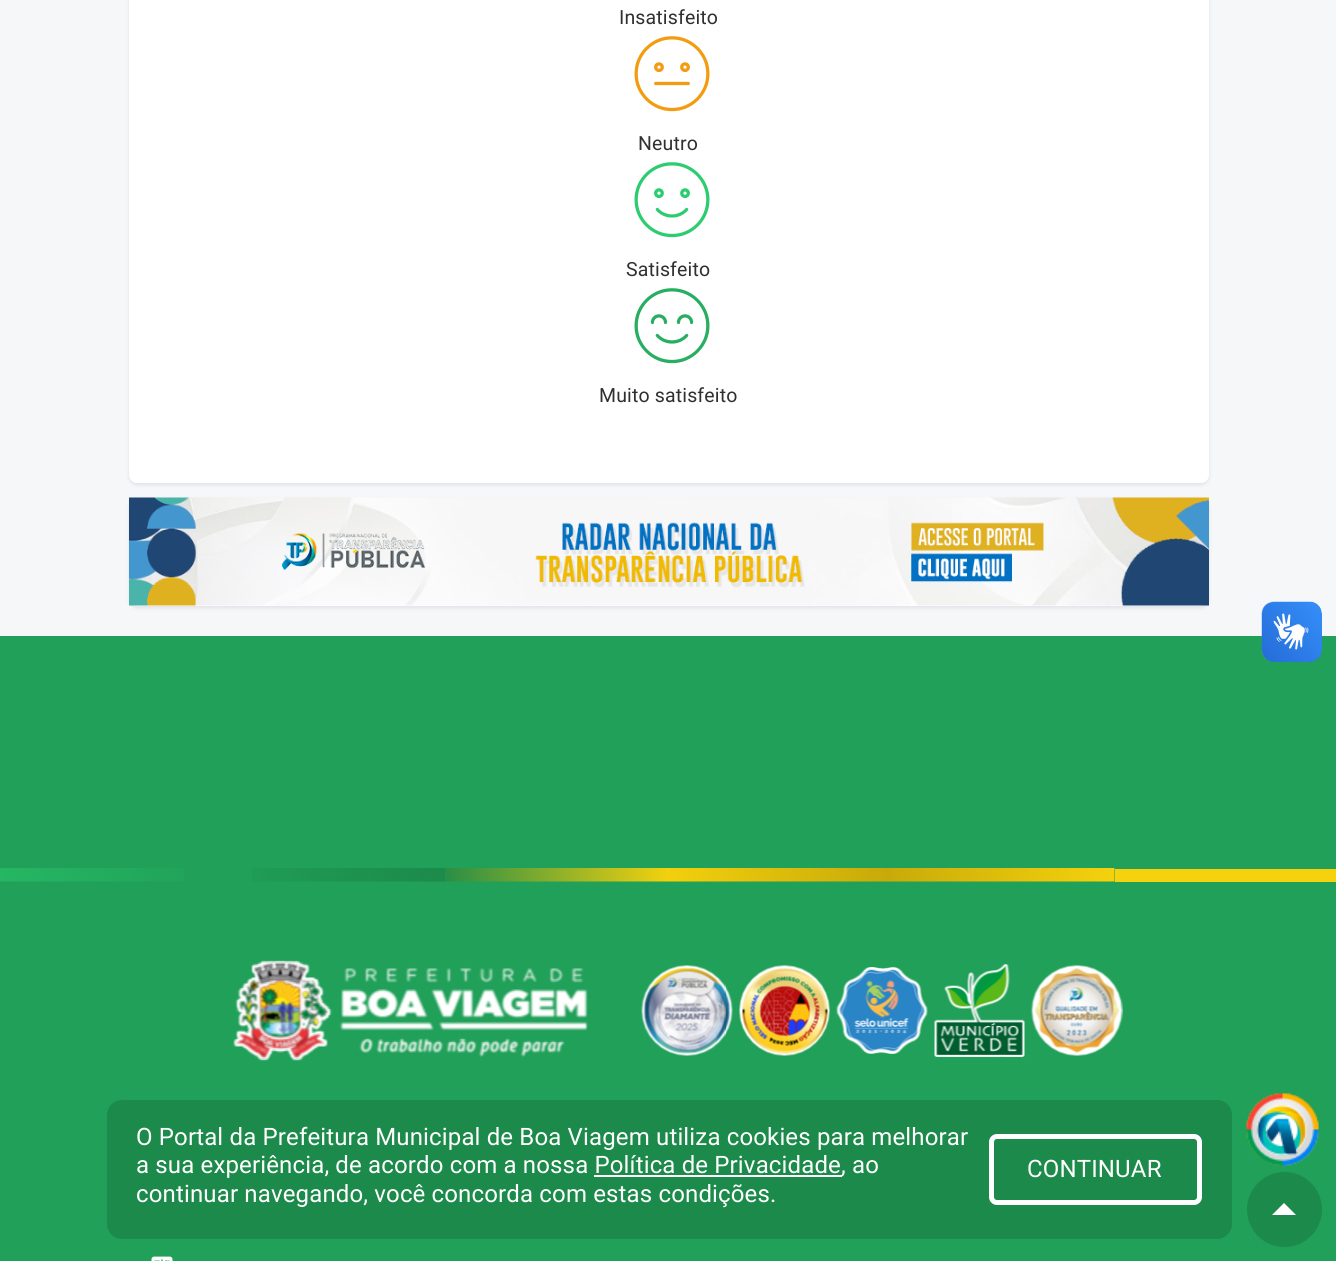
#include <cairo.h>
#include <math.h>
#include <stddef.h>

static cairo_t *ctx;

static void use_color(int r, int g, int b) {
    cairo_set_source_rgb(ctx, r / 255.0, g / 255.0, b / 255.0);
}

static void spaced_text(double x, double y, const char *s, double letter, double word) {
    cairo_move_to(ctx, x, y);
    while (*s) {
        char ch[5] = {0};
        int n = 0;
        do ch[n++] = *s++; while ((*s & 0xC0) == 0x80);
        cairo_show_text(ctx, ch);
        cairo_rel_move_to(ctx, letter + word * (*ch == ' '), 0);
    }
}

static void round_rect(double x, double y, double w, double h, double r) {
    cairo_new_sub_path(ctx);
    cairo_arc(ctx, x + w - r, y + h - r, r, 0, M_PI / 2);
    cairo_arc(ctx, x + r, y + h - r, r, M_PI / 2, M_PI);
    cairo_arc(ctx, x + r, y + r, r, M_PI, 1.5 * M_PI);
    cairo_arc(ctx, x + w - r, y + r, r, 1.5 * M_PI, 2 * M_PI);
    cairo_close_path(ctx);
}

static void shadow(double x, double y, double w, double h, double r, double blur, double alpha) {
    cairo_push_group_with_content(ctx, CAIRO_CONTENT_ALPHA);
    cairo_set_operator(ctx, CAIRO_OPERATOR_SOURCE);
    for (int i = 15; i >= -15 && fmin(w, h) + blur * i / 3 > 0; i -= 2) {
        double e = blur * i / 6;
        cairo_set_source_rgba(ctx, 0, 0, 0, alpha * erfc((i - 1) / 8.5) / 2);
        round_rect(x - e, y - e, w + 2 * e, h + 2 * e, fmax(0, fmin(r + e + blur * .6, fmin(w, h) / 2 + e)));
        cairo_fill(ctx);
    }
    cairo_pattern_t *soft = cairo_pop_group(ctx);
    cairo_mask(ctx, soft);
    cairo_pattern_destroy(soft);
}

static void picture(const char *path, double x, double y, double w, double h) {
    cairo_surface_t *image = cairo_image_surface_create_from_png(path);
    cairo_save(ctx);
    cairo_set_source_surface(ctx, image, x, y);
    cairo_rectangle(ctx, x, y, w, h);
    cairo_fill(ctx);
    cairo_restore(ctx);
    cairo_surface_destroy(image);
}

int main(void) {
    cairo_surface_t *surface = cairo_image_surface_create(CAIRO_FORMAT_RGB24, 1336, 1261);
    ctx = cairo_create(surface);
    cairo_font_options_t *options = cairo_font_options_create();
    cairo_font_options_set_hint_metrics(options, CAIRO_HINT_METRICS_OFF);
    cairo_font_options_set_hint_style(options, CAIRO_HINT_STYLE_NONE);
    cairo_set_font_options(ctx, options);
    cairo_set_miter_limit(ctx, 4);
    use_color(246, 247, 248);
    cairo_paint(ctx);
    use_color(3, 0, 71);
    shadow(129, -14, 1080, 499, 8, 2, 0.09);
    use_color(255, 255, 255);
    round_rect(129, -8, 1080, 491, 8);
    cairo_fill(ctx);
    cairo_select_font_face(ctx, "Roboto", CAIRO_FONT_SLANT_NORMAL, CAIRO_FONT_WEIGHT_NORMAL);
    cairo_set_font_size(ctx, 19.5);
    use_color(48, 48, 48);
    spaced_text(619, 24, "Insatisfeito", 0.15, 0);
    picture("img1.png", 634, 36, 76, 76);
    spaced_text(638, 150, "Neutro", 0.15, 0);
    picture("img2.png", 634, 162, 76, 76);
    spaced_text(626, 276, "Satisfeito", 0.15, 0);
    picture("img3.png", 634, 288, 76, 76);
    spaced_text(599, 402, "Muito satisfeito", 0.15, 0);
    use_color(3, 0, 71);
    shadow(129, 500, 1080, 108, 8, 2, 0.09);
    use_color(255, 255, 255);
    round_rect(129, 498, 1080, 108, 8);
    cairo_fill(ctx);
    picture("img4.png", 129, 497, 1080, 109);
    use_color(32, 160, 88);
    cairo_rectangle(ctx, 0, 636, 1336, 625);
    cairo_fill(ctx);
    picture("img5.png", 1261, 601, 61, 61);
    picture("img6.png", 1262, 602, 60, 60);
    picture("img7.png", 0, 868, 184, 14);
    picture("img8.png", 252, 868, 194, 14);
    picture("img9.png", 445, 868, 224, 14);
    picture("img10.png", 669, 868, 222, 14);
    picture("img11.png", 891, 868, 224, 14);
    use_color(245, 210, 13);
    cairo_rectangle(ctx, 1115, 869, 221, 13);
    cairo_fill(ctx);
    picture("img12.png", 233, 960, 355, 101);
    picture("img13.png", 641, 965, 92, 91);
    picture("img14.png", 739, 965, 91, 91);
    picture("img15.png", 836, 967, 92, 87);
    picture("img16.png", 934, 964, 91, 93);
    picture("img17.png", 1031, 965, 92, 91);
    use_color(28, 138, 74);
    round_rect(107, 1100, 1125, 139, 15);
    cairo_fill(ctx);
    cairo_set_font_size(ctx, 24);
    use_color(255, 255, 255);
    spaced_text(136, 1145, "O Portal da Prefeitura Municipal de Boa Viagem utiliza cookies para melhorar", 0.15, 0);
    spaced_text(136, 1173, "a sua experiência, de acordo com a nossa Política de Privacidade", 0.15, 0);
    cairo_rectangle(ctx, 594, 1175, 248, 2);
    cairo_fill(ctx);
    spaced_text(841, 1173, ", ao", 0.15, 0);
    spaced_text(136, 1202, "continuar navegando, você concorda com estas condições.", 0.15, 0);
    round_rect(991.5, 1136.5, 208, 66, 5.5);
    cairo_set_line_width(ctx, 5);
    cairo_stroke(ctx);
    spaced_text(1027, 1177, "CONTINUAR", 0.15, 0);
    picture("img18.png", 1246, 1093, 73, 73);
    use_color(28, 138, 74);
    cairo_arc(ctx, 1284.5, 1209.5, 37.5, 0, 2 * M_PI);
    cairo_fill(ctx);
    use_color(255, 255, 255);
    cairo_new_path(ctx);
    cairo_move_to(ctx, 1296, 1215);
    cairo_line_to(ctx, 1272, 1215);
    cairo_line_to(ctx, 1284, 1203);
    cairo_close_path(ctx);
    cairo_fill(ctx);
    picture("img19.png", 151, 1256, 22, 5);
    cairo_surface_write_to_png(surface, "result.png");
    cairo_font_options_destroy(options);
    cairo_destroy(ctx);
    cairo_surface_destroy(surface);
    return 0;
}
